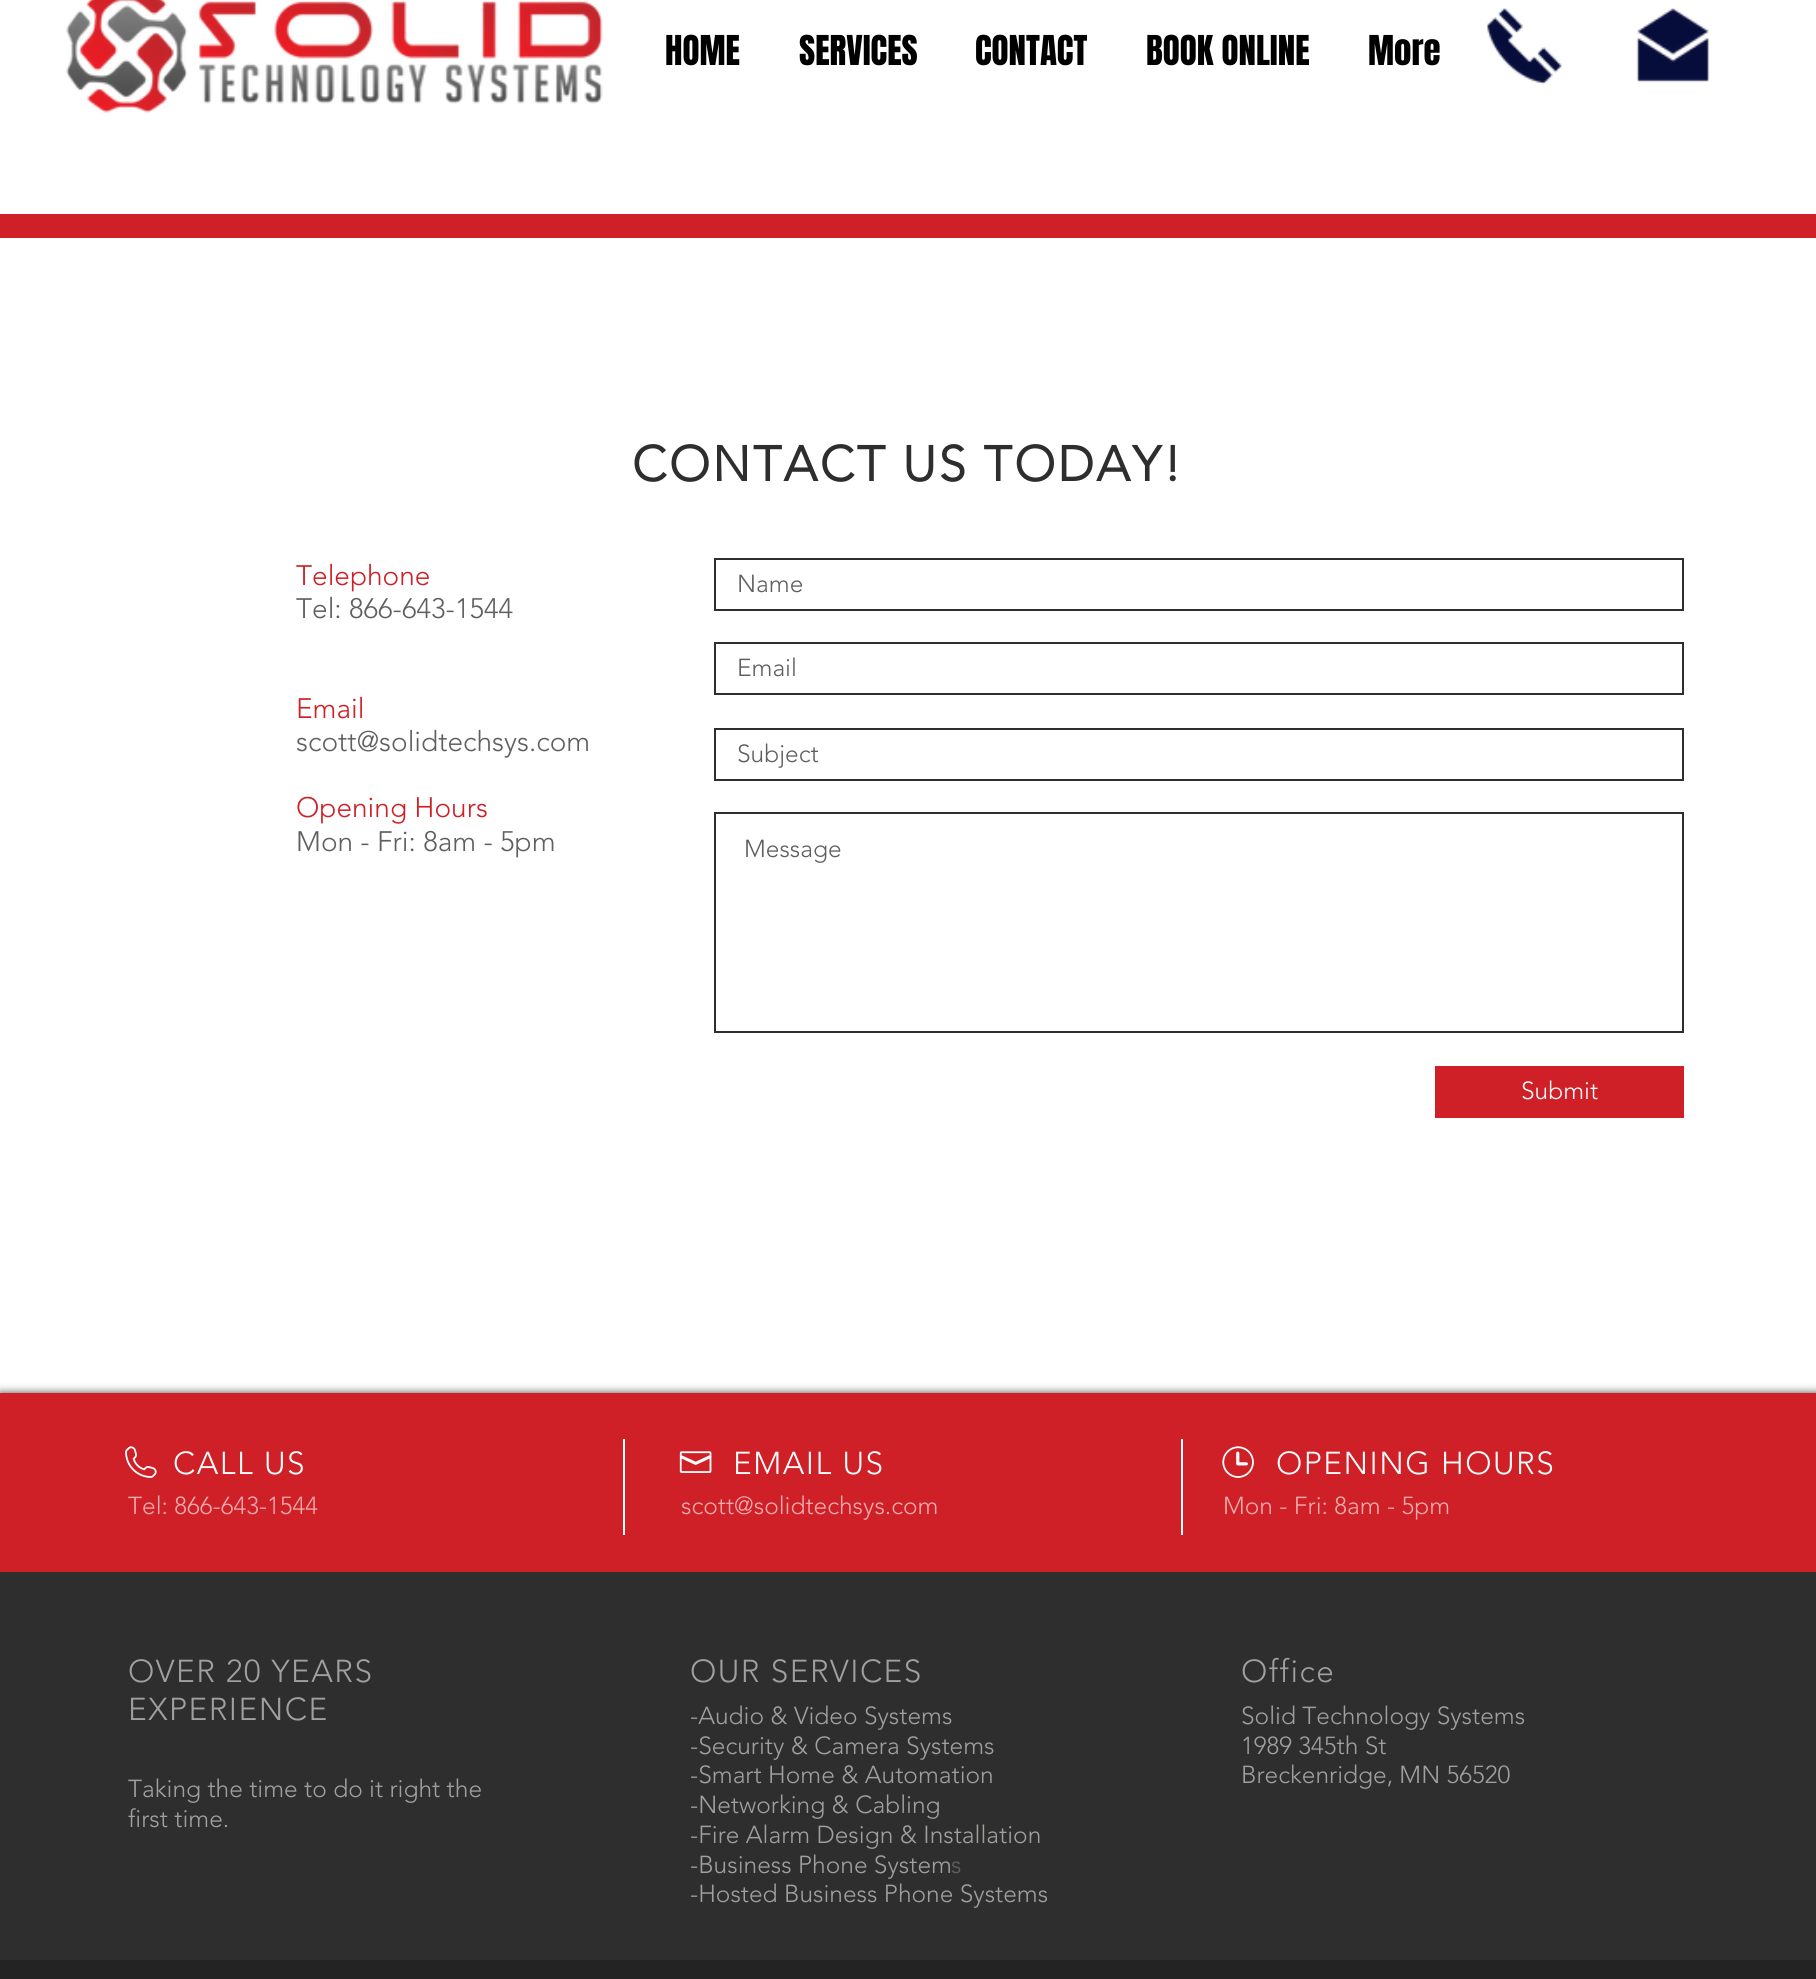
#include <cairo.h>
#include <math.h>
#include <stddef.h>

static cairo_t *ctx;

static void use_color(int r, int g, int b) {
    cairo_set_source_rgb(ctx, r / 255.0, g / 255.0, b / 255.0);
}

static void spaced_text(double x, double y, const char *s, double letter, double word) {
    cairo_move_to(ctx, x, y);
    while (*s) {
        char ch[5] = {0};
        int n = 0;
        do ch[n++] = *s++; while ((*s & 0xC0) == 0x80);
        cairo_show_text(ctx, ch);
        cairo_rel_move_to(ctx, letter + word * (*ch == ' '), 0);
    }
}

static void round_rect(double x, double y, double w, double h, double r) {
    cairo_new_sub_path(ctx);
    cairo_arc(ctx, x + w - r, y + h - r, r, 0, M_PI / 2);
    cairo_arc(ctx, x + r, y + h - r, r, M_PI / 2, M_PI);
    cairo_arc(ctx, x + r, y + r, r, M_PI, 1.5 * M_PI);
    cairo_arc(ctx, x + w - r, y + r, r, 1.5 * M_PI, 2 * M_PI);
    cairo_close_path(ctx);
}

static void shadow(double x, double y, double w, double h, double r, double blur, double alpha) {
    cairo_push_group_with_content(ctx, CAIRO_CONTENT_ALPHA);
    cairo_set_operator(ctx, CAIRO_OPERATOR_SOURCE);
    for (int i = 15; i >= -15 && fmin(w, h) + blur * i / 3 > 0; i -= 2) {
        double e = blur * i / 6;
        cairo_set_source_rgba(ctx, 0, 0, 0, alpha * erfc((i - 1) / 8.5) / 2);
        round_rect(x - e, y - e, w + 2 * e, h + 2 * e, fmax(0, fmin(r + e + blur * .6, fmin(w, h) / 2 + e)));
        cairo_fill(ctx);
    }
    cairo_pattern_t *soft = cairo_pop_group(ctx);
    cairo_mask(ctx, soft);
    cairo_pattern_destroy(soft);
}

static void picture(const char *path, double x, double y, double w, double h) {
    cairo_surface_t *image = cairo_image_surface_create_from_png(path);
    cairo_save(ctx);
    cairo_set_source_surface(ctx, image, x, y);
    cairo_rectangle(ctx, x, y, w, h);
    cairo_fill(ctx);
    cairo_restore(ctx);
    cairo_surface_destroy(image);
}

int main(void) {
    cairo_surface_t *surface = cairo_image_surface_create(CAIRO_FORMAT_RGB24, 1816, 1979);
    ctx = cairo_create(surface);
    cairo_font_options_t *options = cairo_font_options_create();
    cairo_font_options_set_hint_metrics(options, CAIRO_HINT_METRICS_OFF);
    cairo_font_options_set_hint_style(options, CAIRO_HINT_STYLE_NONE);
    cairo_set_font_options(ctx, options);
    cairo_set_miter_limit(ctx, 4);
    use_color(255, 255, 255);
    cairo_paint(ctx);
    picture("img1.png", 66, 0, 537, 113);
    cairo_select_font_face(ctx, "Anton", CAIRO_FONT_SLANT_NORMAL, CAIRO_FONT_WEIGHT_NORMAL);
    cairo_set_font_size(ctx, 35);
    use_color(0, 0, 0);
    cairo_move_to(ctx, 665, 65);
    cairo_show_text(ctx, "HOME");
    cairo_move_to(ctx, 799, 65);
    cairo_show_text(ctx, "SERVICES");
    cairo_move_to(ctx, 975, 65);
    cairo_show_text(ctx, "CONTACT");
    cairo_move_to(ctx, 1146, 65);
    cairo_show_text(ctx, "BOOK ONLINE");
    cairo_move_to(ctx, 1368, 65);
    cairo_show_text(ctx, "More");
    picture("img2.png", 1487, 8, 75, 77);
    picture("img3.png", 1636, 8, 74, 74);
    use_color(206, 32, 38);
    cairo_rectangle(ctx, 0, 214, 1816, 24);
    cairo_fill(ctx);
    cairo_select_font_face(ctx, "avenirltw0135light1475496", CAIRO_FONT_SLANT_NORMAL, CAIRO_FONT_WEIGHT_BOLD);
    cairo_set_font_size(ctx, 49);
    use_color(47, 46, 46);
    spaced_text(632, 481, "CONTACT US TODAY!", 2.5, 0);
    cairo_select_font_face(ctx, "avenirltw0135light1475496 Light", CAIRO_FONT_SLANT_NORMAL, CAIRO_FONT_WEIGHT_NORMAL);
    cairo_set_font_size(ctx, 28);
    use_color(206, 32, 38);
    cairo_move_to(ctx, 296, 585);
    cairo_show_text(ctx, "Telephone");
    use_color(96, 94, 94);
    cairo_move_to(ctx, 296, 618);
    cairo_show_text(ctx, "Tel: 866-643-1544");
    use_color(206, 32, 38);
    cairo_move_to(ctx, 296, 718);
    cairo_show_text(ctx, "Email");
    use_color(96, 94, 94);
    cairo_move_to(ctx, 296, 751);
    cairo_show_text(ctx, "scott@solidtechsys.com");
    use_color(206, 32, 38);
    cairo_move_to(ctx, 296, 817);
    cairo_show_text(ctx, "Opening Hours");
    use_color(96, 94, 94);
    cairo_move_to(ctx, 296, 851);
    cairo_show_text(ctx, "Mon - Fri: 8am - 5pm");
    cairo_rectangle(ctx, 715, 559, 968, 51);
    use_color(47, 46, 46);
    cairo_stroke(ctx);
    cairo_set_font_size(ctx, 24.5);
    use_color(96, 94, 94);
    cairo_move_to(ctx, 737, 592);
    cairo_show_text(ctx, "Name");
    cairo_rectangle(ctx, 715, 643, 968, 51);
    use_color(47, 46, 46);
    cairo_stroke(ctx);
    use_color(96, 94, 94);
    cairo_move_to(ctx, 737, 676);
    cairo_show_text(ctx, "Email");
    cairo_rectangle(ctx, 715, 729, 968, 51);
    use_color(47, 46, 46);
    cairo_stroke(ctx);
    use_color(96, 94, 94);
    cairo_move_to(ctx, 737, 762);
    cairo_show_text(ctx, "Subject");
    cairo_rectangle(ctx, 715, 813, 968, 219);
    use_color(47, 46, 46);
    cairo_stroke(ctx);
    use_color(96, 94, 94);
    cairo_move_to(ctx, 744, 857);
    cairo_show_text(ctx, "Message");
    use_color(206, 32, 38);
    cairo_rectangle(ctx, 1435, 1066, 249, 52);
    cairo_fill(ctx);
    use_color(255, 255, 255);
    cairo_move_to(ctx, 1521, 1099);
    cairo_show_text(ctx, "Submit");
    use_color(0, 0, 0);
    shadow(0, 1393, 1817, 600, 0, 4.5, 0.7);
    use_color(47, 46, 46);
    cairo_rectangle(ctx, 0, 1572, 1816, 388);
    cairo_fill(ctx);
    use_color(206, 32, 38);
    cairo_rectangle(ctx, 0, 1393, 1816, 179);
    cairo_fill(ctx);
    picture("img4.png", 125, 1446, 32, 32);
    cairo_set_font_size(ctx, 31.5);
    use_color(255, 255, 255);
    spaced_text(173, 1474, "CALL US", 1.5, 0);
    cairo_rectangle(ctx, 623, 1439, 2, 96);
    cairo_fill(ctx);
    picture("img5.png", 679, 1451, 33, 22);
    spaced_text(733, 1474, "EMAIL US", 1.5, 0);
    cairo_rectangle(ctx, 1181, 1439, 2, 96);
    cairo_fill(ctx);
    picture("img6.png", 1222, 1446, 32, 32);
    spaced_text(1276, 1474, "OPENING HOURS", 1.5, 0);
    cairo_set_font_size(ctx, 24.5);
    use_color(239, 171, 174);
    cairo_move_to(ctx, 128, 1514);
    cairo_show_text(ctx, "Tel: 866-643-1544");
    cairo_move_to(ctx, 681, 1514);
    cairo_show_text(ctx, "scott@solidtechsys.com");
    cairo_move_to(ctx, 1223, 1514);
    cairo_show_text(ctx, "Mon - Fri: 8am - 5pm");
    cairo_set_font_size(ctx, 31.5);
    use_color(160, 160, 159);
    spaced_text(128, 1682, "OVER 20 YEARS", 1.5, 0);
    spaced_text(128, 1720, "EXPERIENCE", 1.5, 0);
    spaced_text(690, 1682, "OUR SERVICES", 1.5, 0);
    spaced_text(1241, 1682, "Office", 1.5, 0);
    cairo_set_font_size(ctx, 24.5);
    cairo_move_to(ctx, 690, 1724);
    cairo_show_text(ctx, "-Audio & Video Systems");
    cairo_move_to(ctx, 690, 1754);
    cairo_show_text(ctx, "-Security & Camera Systems");
    cairo_move_to(ctx, 690, 1783);
    cairo_show_text(ctx, "-Smart Home & Automation");
    cairo_move_to(ctx, 690, 1813);
    cairo_show_text(ctx, "-Networking & Cabling");
    cairo_move_to(ctx, 690, 1843);
    cairo_show_text(ctx, "-Fire Alarm Design & Installation");
    cairo_move_to(ctx, 690, 1873);
    cairo_show_text(ctx, "-Business Phone System");
    use_color(96, 94, 94);
    cairo_move_to(ctx, 951, 1873);
    cairo_show_text(ctx, "s");
    use_color(160, 160, 159);
    cairo_move_to(ctx, 690, 1902);
    cairo_show_text(ctx, "-Hosted Business Phone Systems");
    cairo_move_to(ctx, 1241, 1724);
    cairo_show_text(ctx, "Solid Technology Systems");
    cairo_move_to(ctx, 1241, 1754);
    cairo_show_text(ctx, "1989 345th St");
    cairo_move_to(ctx, 1241, 1783);
    cairo_show_text(ctx, "Breckenridge, MN 56520");
    cairo_move_to(ctx, 128, 1797);
    cairo_show_text(ctx, "Taking the time to do it right the");
    cairo_move_to(ctx, 128, 1827);
    cairo_show_text(ctx, "first time.");
    use_color(36, 35, 35);
    cairo_rectangle(ctx, 0, 1960, 1816, 19);
    cairo_fill(ctx);
    cairo_surface_write_to_png(surface, "result.png");
    cairo_font_options_destroy(options);
    cairo_destroy(ctx);
    cairo_surface_destroy(surface);
    return 0;
}
